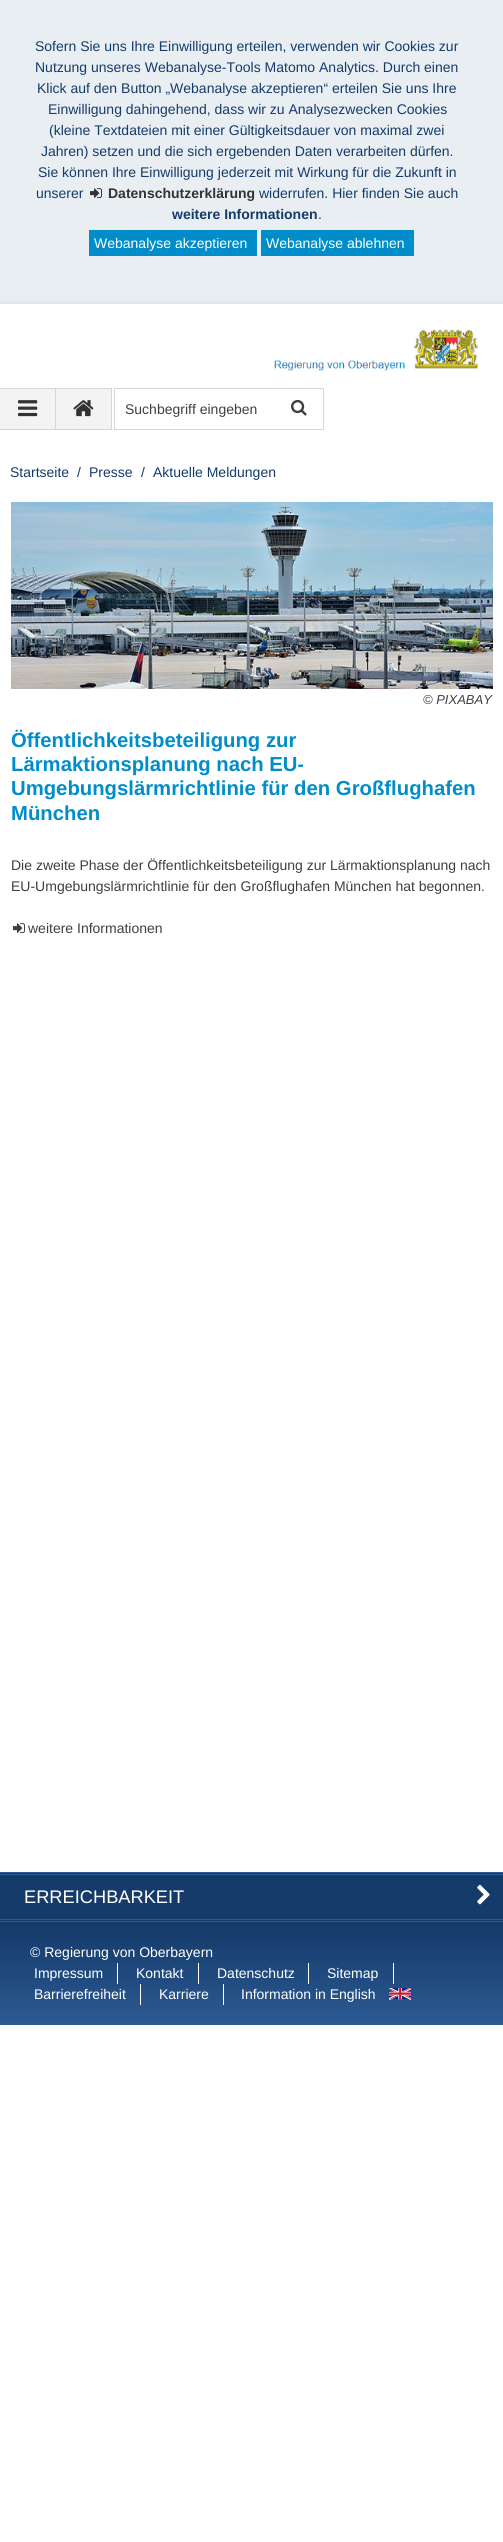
#include <cairo.h>
#include <math.h>
#include <stddef.h>

static cairo_t *ctx;

static void use_color(int r, int g, int b) {
    cairo_set_source_rgb(ctx, r / 255.0, g / 255.0, b / 255.0);
}

static void picture(const char *path, double x, double y, double w, double h) {
    cairo_surface_t *image = cairo_image_surface_create_from_png(path);
    cairo_save(ctx);
    cairo_set_source_surface(ctx, image, x, y);
    cairo_rectangle(ctx, x, y, w, h);
    cairo_fill(ctx);
    cairo_restore(ctx);
    cairo_surface_destroy(image);
}

int main(void) {
    cairo_surface_t *surface = cairo_image_surface_create(CAIRO_FORMAT_RGB24, 503, 2542);
    ctx = cairo_create(surface);
    cairo_font_options_t *options = cairo_font_options_create();
    cairo_font_options_set_hint_metrics(options, CAIRO_HINT_METRICS_OFF);
    cairo_font_options_set_hint_style(options, CAIRO_HINT_STYLE_NONE);
    cairo_set_font_options(ctx, options);
    cairo_set_miter_limit(ctx, 4);
    cairo_pattern_t *gradient;
    use_color(255, 255, 255);
    cairo_paint(ctx);
    use_color(233, 238, 242);
    cairo_rectangle(ctx, 0, 0, 503, 301);
    cairo_fill(ctx);
    use_color(225, 231, 240);
    cairo_rectangle(ctx, 0, 301, 503, 3);
    cairo_fill(ctx);
    cairo_select_font_face(ctx, "Liberation Sans", CAIRO_FONT_SLANT_NORMAL, CAIRO_FONT_WEIGHT_NORMAL);
    cairo_set_font_size(ctx, 14);
    use_color(21, 59, 106);
    cairo_move_to(ctx, 35, 51);
    cairo_show_text(ctx, "Sofern Sie uns Ihre Einwilligung erteilen, verwenden wir Cookies zur");
    cairo_move_to(ctx, 35, 72);
    cairo_show_text(ctx, "Nutzung unseres Webanalyse-Tools Matomo Analytics. Durch einen");
    cairo_move_to(ctx, 37, 93);
    cairo_show_text(ctx, "Klick auf den Button „Webanalyse akzeptieren“ erteilen Sie uns Ihre");
    cairo_move_to(ctx, 48, 114);
    cairo_show_text(ctx, "Einwilligung dahingehend, dass wir zu Analysezwecken Cookies");
    cairo_move_to(ctx, 49, 135);
    cairo_show_text(ctx, "(kleine Textdateien mit einer Gültigkeitsdauer von maximal zwei");
    cairo_move_to(ctx, 41, 156);
    cairo_show_text(ctx, "Jahren) setzen und die sich ergebenden Daten verarbeiten dürfen.");
    cairo_move_to(ctx, 38, 177);
    cairo_show_text(ctx, "Sie können Ihre Einwilligung jederzeit mit Wirkung für die Zukunft in");
    cairo_move_to(ctx, 36, 198);
    cairo_show_text(ctx, "unserer");
    picture("img1.png", 90, 188, 12, 11);
    cairo_select_font_face(ctx, "Liberation Sans", CAIRO_FONT_SLANT_NORMAL, CAIRO_FONT_WEIGHT_BOLD);
    use_color(51, 51, 51);
    cairo_move_to(ctx, 108, 198);
    cairo_show_text(ctx, "Datenschutzerklärung");
    cairo_select_font_face(ctx, "Liberation Sans", CAIRO_FONT_SLANT_NORMAL, CAIRO_FONT_WEIGHT_NORMAL);
    use_color(21, 59, 106);
    cairo_move_to(ctx, 259, 198);
    cairo_show_text(ctx, "widerrufen. Hier finden Sie auch");
    cairo_select_font_face(ctx, "Liberation Sans", CAIRO_FONT_SLANT_NORMAL, CAIRO_FONT_WEIGHT_BOLD);
    cairo_move_to(ctx, 172, 219);
    cairo_show_text(ctx, "weitere Informationen");
    cairo_select_font_face(ctx, "Liberation Sans", CAIRO_FONT_SLANT_NORMAL, CAIRO_FONT_WEIGHT_NORMAL);
    cairo_move_to(ctx, 318, 219);
    cairo_show_text(ctx, ".");
    use_color(0, 141, 201);
    cairo_rectangle(ctx, 89, 230, 168, 26);
    cairo_fill(ctx);
    use_color(255, 255, 255);
    cairo_move_to(ctx, 94, 248);
    cairo_show_text(ctx, "Webanalyse akzeptieren");
    use_color(0, 141, 201);
    cairo_rectangle(ctx, 261, 230, 153, 26);
    cairo_fill(ctx);
    use_color(255, 255, 255);
    cairo_move_to(ctx, 266, 248);
    cairo_show_text(ctx, "Webanalyse ablehnen");
    picture("img2.png", 274, 329, 204, 42);
    use_color(243, 243, 243);
    cairo_rectangle(ctx, 0, 389, 55, 40);
    cairo_fill(ctx);
    use_color(215, 215, 215);
    cairo_rectangle(ctx, 0, 388, 112, 1);
    cairo_fill(ctx);
    cairo_rectangle(ctx, 55, 388, 1, 42);
    cairo_fill(ctx);
    cairo_rectangle(ctx, 0, 429, 56, 1);
    cairo_fill(ctx);
    picture("img3.png", 18, 400, 20, 17);
    use_color(243, 243, 243);
    cairo_rectangle(ctx, 56, 389, 55, 40);
    cairo_fill(ctx);
    use_color(215, 215, 215);
    cairo_rectangle(ctx, 111, 388, 1, 42);
    cairo_fill(ctx);
    cairo_rectangle(ctx, 56, 429, 56, 1);
    cairo_fill(ctx);
    picture("img4.png", 73, 400, 21, 17);
    cairo_rectangle(ctx, 114.5, 388.5, 209, 41);
    cairo_set_line_width(ctx, 1);
    cairo_stroke(ctx);
    use_color(63, 63, 63);
    cairo_move_to(ctx, 125, 414);
    cairo_show_text(ctx, "Suchbegriff eingeben");
    picture("img5.png", 291, 399, 16, 17);
    use_color(21, 59, 106);
    cairo_move_to(ctx, 10, 477);
    cairo_show_text(ctx, "Startseite");
    cairo_move_to(ctx, 77, 477);
    cairo_show_text(ctx, "/");
    cairo_move_to(ctx, 89, 477);
    cairo_show_text(ctx, "Presse");
    cairo_move_to(ctx, 141, 477);
    cairo_show_text(ctx, "/");
    cairo_move_to(ctx, 153, 477);
    cairo_show_text(ctx, "Aktuelle Meldungen");
    picture("img6.png", 11, 502, 482, 187);
    cairo_select_font_face(ctx, "Liberation Sans", CAIRO_FONT_SLANT_ITALIC, CAIRO_FONT_WEIGHT_NORMAL);
    cairo_set_font_size(ctx, 13);
    use_color(63, 63, 63);
    cairo_move_to(ctx, 423, 704);
    cairo_show_text(ctx, "© PIXABAY");
    cairo_select_font_face(ctx, "Liberation Sans", CAIRO_FONT_SLANT_NORMAL, CAIRO_FONT_WEIGHT_BOLD);
    cairo_set_font_size(ctx, 20.3);
    use_color(0, 141, 201);
    cairo_move_to(ctx, 11, 747);
    cairo_show_text(ctx, "Öffentlichkeitsbeteiligung zur");
    cairo_move_to(ctx, 11, 771);
    cairo_show_text(ctx, "Lärmaktionsplanung nach EU-");
    cairo_move_to(ctx, 11, 795);
    cairo_show_text(ctx, "Umgebungslärmrichtlinie für den Großflughafen");
    cairo_move_to(ctx, 11, 820);
    cairo_show_text(ctx, "München");
    cairo_select_font_face(ctx, "Liberation Sans", CAIRO_FONT_SLANT_NORMAL, CAIRO_FONT_WEIGHT_NORMAL);
    cairo_set_font_size(ctx, 14);
    use_color(63, 63, 63);
    cairo_move_to(ctx, 11, 870);
    cairo_show_text(ctx, "Die zweite Phase der Öffentlichkeitsbeteiligung zur Lärmaktionsplanung nach");
    cairo_move_to(ctx, 11, 891);
    cairo_show_text(ctx, "EU-Umgebungslärmrichtlinie für den Großflughafen München hat begonnen.");
    picture("img7.png", 13, 923, 12, 11);
    cairo_move_to(ctx, 28, 933);
    cairo_show_text(ctx, "weitere Informationen");
    use_color(21, 59, 106);
    cairo_rectangle(ctx, 0, 1873, 503, 48);
    cairo_fill(ctx);
    use_color(44, 90, 147);
    cairo_rectangle(ctx, 0, 1872, 503, 1);
    cairo_fill(ctx);
    cairo_rectangle(ctx, 0, 1874, 503, 1);
    cairo_fill(ctx);
    cairo_rectangle(ctx, 0, 1919, 503, 1);
    cairo_fill(ctx);
    cairo_rectangle(ctx, 0, 1921, 503, 1);
    cairo_fill(ctx);
    cairo_set_font_size(ctx, 18.25);
    use_color(255, 255, 255);
    cairo_move_to(ctx, 24, 1903);
    cairo_show_text(ctx, "ERREICHBARKEIT");
    picture("img8.png", 477, 1884, 13, 21);
    gradient = cairo_pattern_create_linear(252, 1922, 252, 2025);
    cairo_pattern_add_color_stop_rgba(gradient, 0, 0.075, 0.224, 0.408, 1);
    cairo_pattern_add_color_stop_rgba(gradient, 1, 0.173, 0.353, 0.576, 1);
    cairo_set_source(ctx, gradient);
    cairo_pattern_destroy(gradient);
    cairo_rectangle(ctx, 0, 1922, 503, 103);
    cairo_fill(ctx);
    cairo_set_font_size(ctx, 14);
    use_color(255, 255, 255);
    cairo_move_to(ctx, 30, 1957);
    cairo_show_text(ctx, "© Regierung von Oberbayern");
    cairo_rectangle(ctx, 117, 1963, 1, 21);
    cairo_fill(ctx);
    cairo_move_to(ctx, 34, 1978);
    cairo_show_text(ctx, "Impressum");
    cairo_rectangle(ctx, 198, 1963, 1, 21);
    cairo_fill(ctx);
    cairo_move_to(ctx, 136, 1978);
    cairo_show_text(ctx, "Kontakt");
    cairo_rectangle(ctx, 308, 1963, 1, 21);
    cairo_fill(ctx);
    cairo_move_to(ctx, 217, 1978);
    cairo_show_text(ctx, "Datenschutz");
    cairo_rectangle(ctx, 393, 1963, 1, 21);
    cairo_fill(ctx);
    cairo_move_to(ctx, 327, 1978);
    cairo_show_text(ctx, "Sitemap");
    cairo_rectangle(ctx, 140, 1984, 1, 21);
    cairo_fill(ctx);
    cairo_move_to(ctx, 34, 1999);
    cairo_show_text(ctx, "Barrierefreiheit");
    cairo_rectangle(ctx, 223, 1984, 1, 21);
    cairo_fill(ctx);
    cairo_move_to(ctx, 159, 1999);
    cairo_show_text(ctx, "Karriere");
    cairo_move_to(ctx, 241, 1999);
    cairo_show_text(ctx, "Information in English");
    picture("img9.png", 389, 1988, 22, 12);
    cairo_surface_write_to_png(surface, "result.png");
    cairo_font_options_destroy(options);
    cairo_destroy(ctx);
    cairo_surface_destroy(surface);
    return 0;
}
